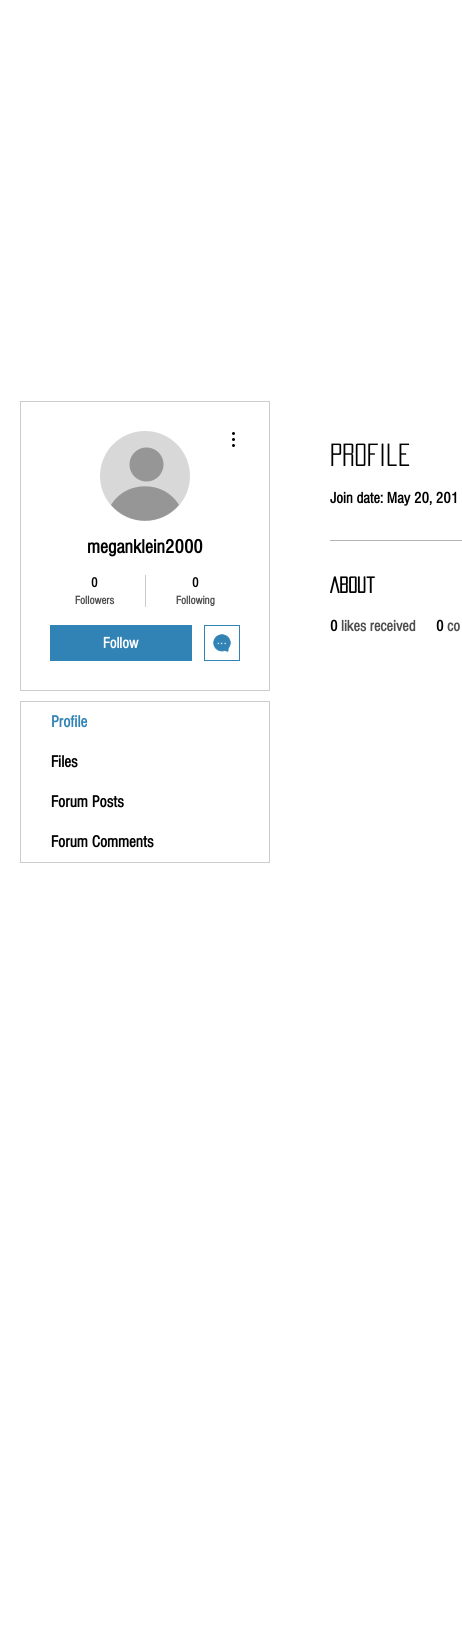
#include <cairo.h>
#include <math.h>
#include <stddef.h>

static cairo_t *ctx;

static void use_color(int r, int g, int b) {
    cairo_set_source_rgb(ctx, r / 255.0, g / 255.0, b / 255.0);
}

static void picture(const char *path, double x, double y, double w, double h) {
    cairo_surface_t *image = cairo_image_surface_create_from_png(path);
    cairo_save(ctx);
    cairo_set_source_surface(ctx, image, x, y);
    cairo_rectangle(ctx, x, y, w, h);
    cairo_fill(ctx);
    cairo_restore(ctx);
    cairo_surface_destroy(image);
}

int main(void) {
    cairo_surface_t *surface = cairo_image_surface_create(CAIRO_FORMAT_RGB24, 462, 1633);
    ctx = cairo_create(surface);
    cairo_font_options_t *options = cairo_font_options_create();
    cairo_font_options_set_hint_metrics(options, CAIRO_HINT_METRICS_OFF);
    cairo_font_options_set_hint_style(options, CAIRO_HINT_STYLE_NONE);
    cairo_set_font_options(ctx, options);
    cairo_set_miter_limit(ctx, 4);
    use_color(255, 255, 255);
    cairo_paint(ctx);
    cairo_rectangle(ctx, 20.5, 401.5, 249, 289);
    use_color(204, 204, 204);
    cairo_set_line_width(ctx, 1);
    cairo_stroke(ctx);
    use_color(216, 216, 216);
    cairo_arc(ctx, 145, 476, 45, 0, 2 * M_PI);
    cairo_fill(ctx);
    use_color(150, 150, 150);
    cairo_arc(ctx, 146.5, 464.5, 17, 0, 2 * M_PI);
    cairo_fill(ctx);
    cairo_new_path(ctx);
    cairo_move_to(ctx, 179, 505);
    cairo_curve_to(ctx, 161, 526, 129, 526, 111, 505);
    cairo_curve_to(ctx, 126, 480, 164, 480, 179, 505);
    cairo_close_path(ctx);
    cairo_fill(ctx);
    picture("img1.png", 232, 432, 3, 15);
    cairo_select_font_face(ctx, "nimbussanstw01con", CAIRO_FONT_SLANT_NORMAL, CAIRO_FONT_WEIGHT_BOLD);
    cairo_set_font_size(ctx, 20);
    use_color(0, 0, 0);
    cairo_move_to(ctx, 87, 553);
    cairo_show_text(ctx, "meganklein2000");
    cairo_set_font_size(ctx, 14);
    cairo_move_to(ctx, 91, 587);
    cairo_show_text(ctx, "0");
    cairo_set_font_size(ctx, 12);
    use_color(77, 77, 77);
    cairo_move_to(ctx, 75, 604);
    cairo_show_text(ctx, "Followers");
    use_color(204, 204, 204);
    cairo_rectangle(ctx, 145, 575, 1, 32);
    cairo_fill(ctx);
    cairo_set_font_size(ctx, 14);
    use_color(0, 0, 0);
    cairo_move_to(ctx, 192, 587);
    cairo_show_text(ctx, "0");
    cairo_set_font_size(ctx, 12);
    use_color(77, 77, 77);
    cairo_move_to(ctx, 176, 604);
    cairo_show_text(ctx, "Following");
    use_color(49, 130, 181);
    cairo_rectangle(ctx, 50, 625, 142, 36);
    cairo_fill(ctx);
    cairo_set_font_size(ctx, 16);
    use_color(255, 255, 255);
    cairo_move_to(ctx, 103, 648);
    cairo_show_text(ctx, "Follow");
    cairo_rectangle(ctx, 204.5, 625.5, 35, 35);
    use_color(49, 130, 181);
    cairo_stroke(ctx);
    picture("img2.png", 213, 634, 18, 18);
    cairo_rectangle(ctx, 20.5, 701.5, 249, 161);
    use_color(204, 204, 204);
    cairo_stroke(ctx);
    cairo_set_font_size(ctx, 17);
    use_color(49, 130, 181);
    cairo_move_to(ctx, 51, 727);
    cairo_show_text(ctx, "Profile");
    use_color(0, 0, 0);
    cairo_move_to(ctx, 51, 767);
    cairo_show_text(ctx, "Files");
    cairo_move_to(ctx, 51, 807);
    cairo_show_text(ctx, "Forum Posts");
    cairo_move_to(ctx, 51, 847);
    cairo_show_text(ctx, "Forum Comments");
    cairo_select_font_face(ctx, "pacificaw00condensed", CAIRO_FONT_SLANT_NORMAL, CAIRO_FONT_WEIGHT_NORMAL);
    cairo_set_font_size(ctx, 28);
    cairo_move_to(ctx, 330, 466);
    cairo_show_text(ctx, "Profile");
    cairo_select_font_face(ctx, "nimbussanstw01con", CAIRO_FONT_SLANT_NORMAL, CAIRO_FONT_WEIGHT_BOLD);
    cairo_set_font_size(ctx, 16);
    cairo_move_to(ctx, 330, 503);
    cairo_show_text(ctx, "Join date: May 20, 201");
    use_color(179, 179, 179);
    cairo_rectangle(ctx, 330, 540, 132, 1);
    cairo_fill(ctx);
    cairo_select_font_face(ctx, "pacificaw00condensed", CAIRO_FONT_SLANT_NORMAL, CAIRO_FONT_WEIGHT_BOLD);
    cairo_set_font_size(ctx, 20);
    use_color(0, 0, 0);
    cairo_move_to(ctx, 330, 593);
    cairo_show_text(ctx, "About");
    cairo_select_font_face(ctx, "nimbussanstw01con", CAIRO_FONT_SLANT_NORMAL, CAIRO_FONT_WEIGHT_BOLD);
    cairo_set_font_size(ctx, 16);
    cairo_move_to(ctx, 330, 631);
    cairo_show_text(ctx, "0");
    use_color(77, 77, 77);
    cairo_move_to(ctx, 341, 631);
    cairo_show_text(ctx, "likes received");
    use_color(0, 0, 0);
    cairo_move_to(ctx, 436, 631);
    cairo_show_text(ctx, "0");
    use_color(77, 77, 77);
    cairo_move_to(ctx, 447, 631);
    cairo_show_text(ctx, "co");
    cairo_surface_write_to_png(surface, "result.png");
    cairo_font_options_destroy(options);
    cairo_destroy(ctx);
    cairo_surface_destroy(surface);
    return 0;
}
